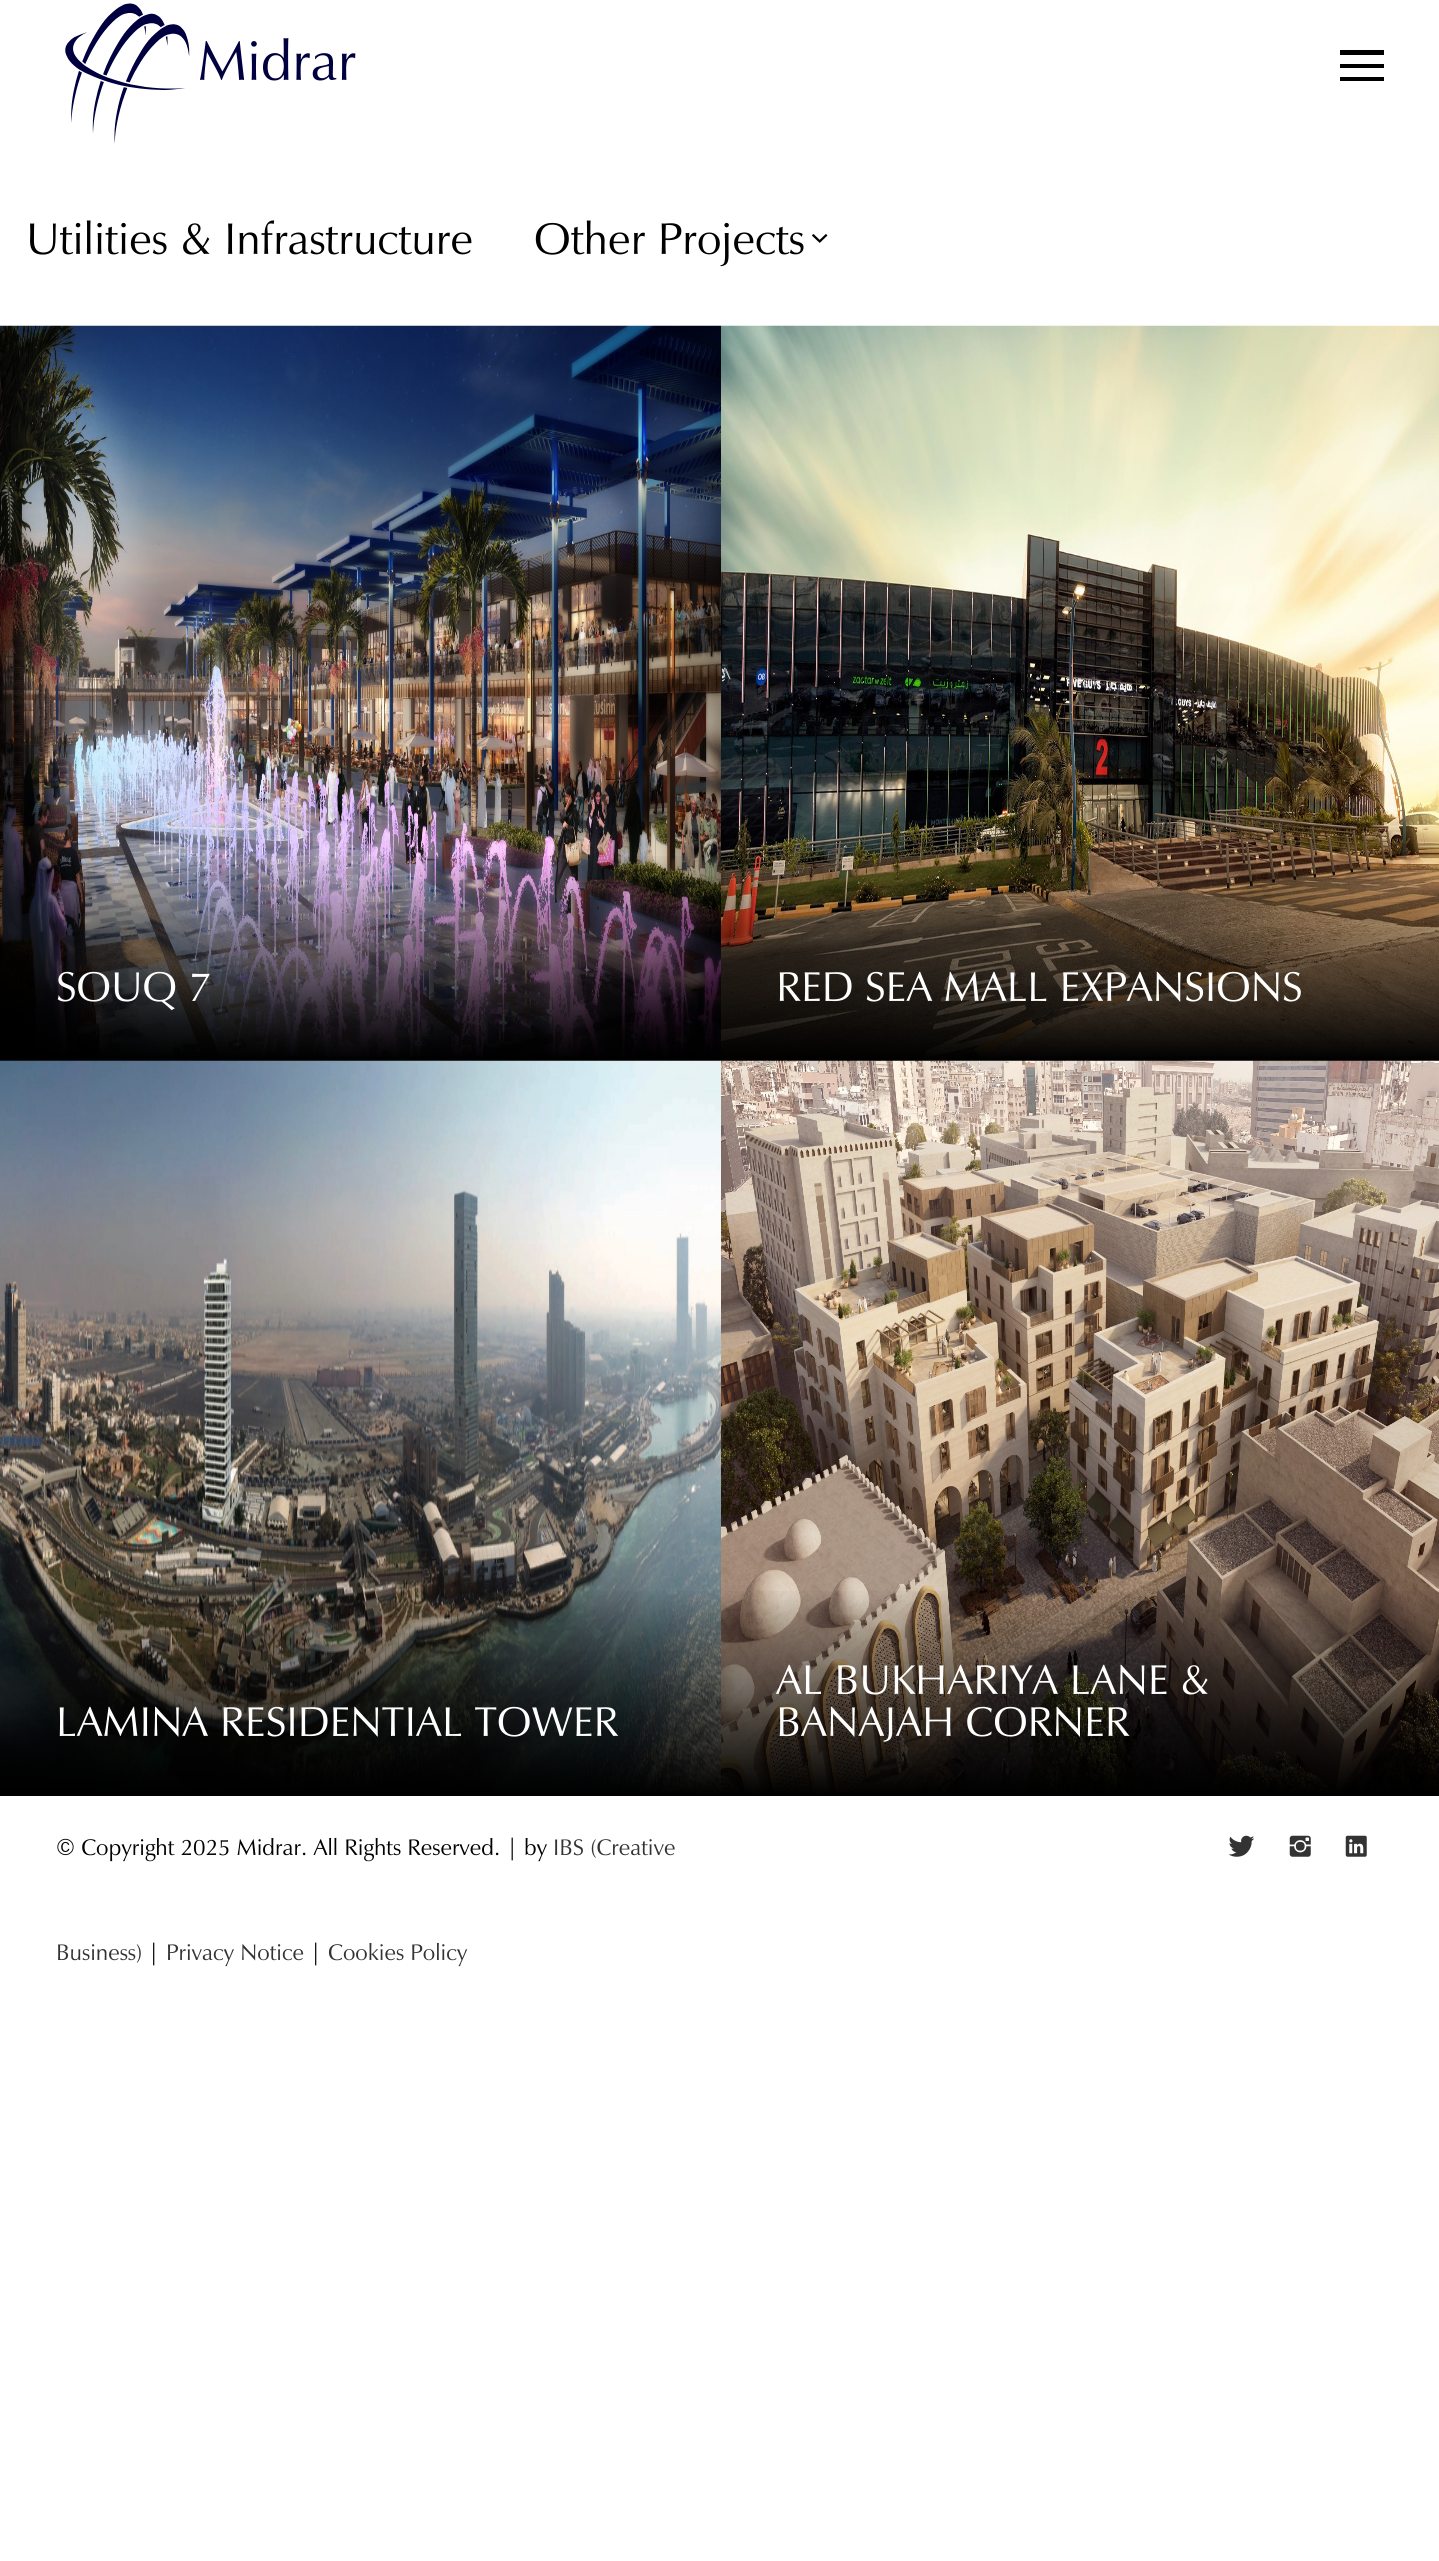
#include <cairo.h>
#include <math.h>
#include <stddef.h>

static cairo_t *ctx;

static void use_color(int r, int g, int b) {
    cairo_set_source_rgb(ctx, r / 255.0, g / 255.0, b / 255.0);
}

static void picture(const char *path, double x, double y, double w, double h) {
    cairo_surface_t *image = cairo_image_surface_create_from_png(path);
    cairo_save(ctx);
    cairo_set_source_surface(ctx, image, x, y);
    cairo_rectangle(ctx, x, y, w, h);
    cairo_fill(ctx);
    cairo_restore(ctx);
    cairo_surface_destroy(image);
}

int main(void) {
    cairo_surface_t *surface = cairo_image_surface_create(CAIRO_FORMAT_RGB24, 1439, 2561);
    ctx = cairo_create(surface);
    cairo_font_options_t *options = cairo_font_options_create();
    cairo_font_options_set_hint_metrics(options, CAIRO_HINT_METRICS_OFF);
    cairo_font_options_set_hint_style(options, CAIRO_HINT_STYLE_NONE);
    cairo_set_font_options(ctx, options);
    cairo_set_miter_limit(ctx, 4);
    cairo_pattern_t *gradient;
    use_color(255, 255, 255);
    cairo_paint(ctx);
    picture("img1.png", 65, 3, 125, 141);
    cairo_select_font_face(ctx, "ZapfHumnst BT", CAIRO_FONT_SLANT_NORMAL, CAIRO_FONT_WEIGHT_NORMAL);
    cairo_set_font_size(ctx, 56);
    use_color(0, 0, 64);
    cairo_move_to(ctx, 198, 80);
    cairo_show_text(ctx, "Midrar");
    use_color(0, 0, 0);
    cairo_new_path(ctx);
    cairo_move_to(ctx, 1340, 68);
    cairo_line_to(ctx, 1340, 64);
    cairo_line_to(ctx, 1384, 64);
    cairo_line_to(ctx, 1384, 68);
    cairo_close_path(ctx);
    cairo_move_to(ctx, 1340, 55);
    cairo_line_to(ctx, 1340, 50);
    cairo_line_to(ctx, 1384, 50);
    cairo_line_to(ctx, 1384, 55);
    cairo_close_path(ctx);
    cairo_move_to(ctx, 1340, 81);
    cairo_line_to(ctx, 1340, 77);
    cairo_line_to(ctx, 1384, 77);
    cairo_line_to(ctx, 1384, 81);
    cairo_close_path(ctx);
    cairo_fill(ctx);
    cairo_set_font_size(ctx, 44.75);
    cairo_move_to(ctx, 26, 254);
    cairo_show_text(ctx, "Utilities & Infrastructure");
    cairo_move_to(ctx, 534, 254);
    cairo_show_text(ctx, "Other Projects");
    picture("img2.png", 812, 234, 16, 9);
    picture("img3.png", 0, 325, 721, 735);
    gradient = cairo_pattern_create_linear(361, 851, 361, 1061);
    cairo_pattern_add_color_stop_rgba(gradient, 0, 0, 0, 0, 0);
    cairo_pattern_add_color_stop_rgba(gradient, 1, 0, 0, 0, 1);
    cairo_set_source(ctx, gradient);
    cairo_pattern_destroy(gradient);
    cairo_rectangle(ctx, 0, 856, 721, 205);
    cairo_fill(ctx);
    cairo_set_font_size(ctx, 42);
    use_color(255, 255, 255);
    cairo_move_to(ctx, 56, 1001);
    cairo_show_text(ctx, "SOUQ 7");
    picture("img4.png", 721, 325, 718, 735);
    gradient = cairo_pattern_create_linear(1081, 851, 1081, 1061);
    cairo_pattern_add_color_stop_rgba(gradient, 0, 0, 0, 0, 0);
    cairo_pattern_add_color_stop_rgba(gradient, 1, 0, 0, 0, 1);
    cairo_set_source(ctx, gradient);
    cairo_pattern_destroy(gradient);
    cairo_rectangle(ctx, 721, 856, 718, 205);
    cairo_fill(ctx);
    use_color(255, 255, 255);
    cairo_move_to(ctx, 776, 1001);
    cairo_show_text(ctx, "RED SEA MALL EXPANSIONS");
    picture("img5.png", 0, 1060, 721, 735);
    gradient = cairo_pattern_create_linear(361, 1586, 361, 1796);
    cairo_pattern_add_color_stop_rgba(gradient, 0, 0, 0, 0, 0);
    cairo_pattern_add_color_stop_rgba(gradient, 1, 0, 0, 0, 1);
    cairo_set_source(ctx, gradient);
    cairo_pattern_destroy(gradient);
    cairo_rectangle(ctx, 0, 1591, 721, 205);
    cairo_fill(ctx);
    use_color(255, 255, 255);
    cairo_move_to(ctx, 56, 1736);
    cairo_show_text(ctx, "LAMINA RESIDENTIAL TOWER");
    picture("img6.png", 721, 1060, 718, 735);
    gradient = cairo_pattern_create_linear(1081, 1586, 1081, 1796);
    cairo_pattern_add_color_stop_rgba(gradient, 0, 0, 0, 0, 0);
    cairo_pattern_add_color_stop_rgba(gradient, 1, 0, 0, 0, 1);
    cairo_set_source(ctx, gradient);
    cairo_pattern_destroy(gradient);
    cairo_rectangle(ctx, 721, 1591, 718, 205);
    cairo_fill(ctx);
    use_color(255, 255, 255);
    cairo_move_to(ctx, 776, 1694);
    cairo_show_text(ctx, "AL BUKHARIYA LANE &");
    cairo_move_to(ctx, 776, 1736);
    cairo_show_text(ctx, "BANAJAH CORNER");
    cairo_set_font_size(ctx, 22.75);
    use_color(0, 0, 0);
    cairo_move_to(ctx, 56, 1855);
    cairo_show_text(ctx, "© Copyright 2025 Midrar. All Rights Reserved. | by");
    use_color(51, 51, 51);
    cairo_move_to(ctx, 553, 1855);
    cairo_show_text(ctx, "IBS (Creative");
    cairo_move_to(ctx, 56, 1960);
    cairo_show_text(ctx, "Business)");
    use_color(0, 0, 0);
    cairo_move_to(ctx, 148, 1960);
    cairo_show_text(ctx, "|");
    use_color(51, 51, 51);
    cairo_move_to(ctx, 166, 1960);
    cairo_show_text(ctx, "Privacy Notice");
    use_color(0, 0, 0);
    cairo_move_to(ctx, 310, 1960);
    cairo_show_text(ctx, "|");
    use_color(51, 51, 51);
    cairo_move_to(ctx, 328, 1960);
    cairo_show_text(ctx, "Cookies Policy");
    picture("img7.png", 1228, 1835, 27, 22);
    picture("img8.png", 1289, 1835, 22, 22);
    picture("img9.png", 1345, 1835, 22, 22);
    cairo_surface_write_to_png(surface, "result.png");
    cairo_font_options_destroy(options);
    cairo_destroy(ctx);
    cairo_surface_destroy(surface);
    return 0;
}
